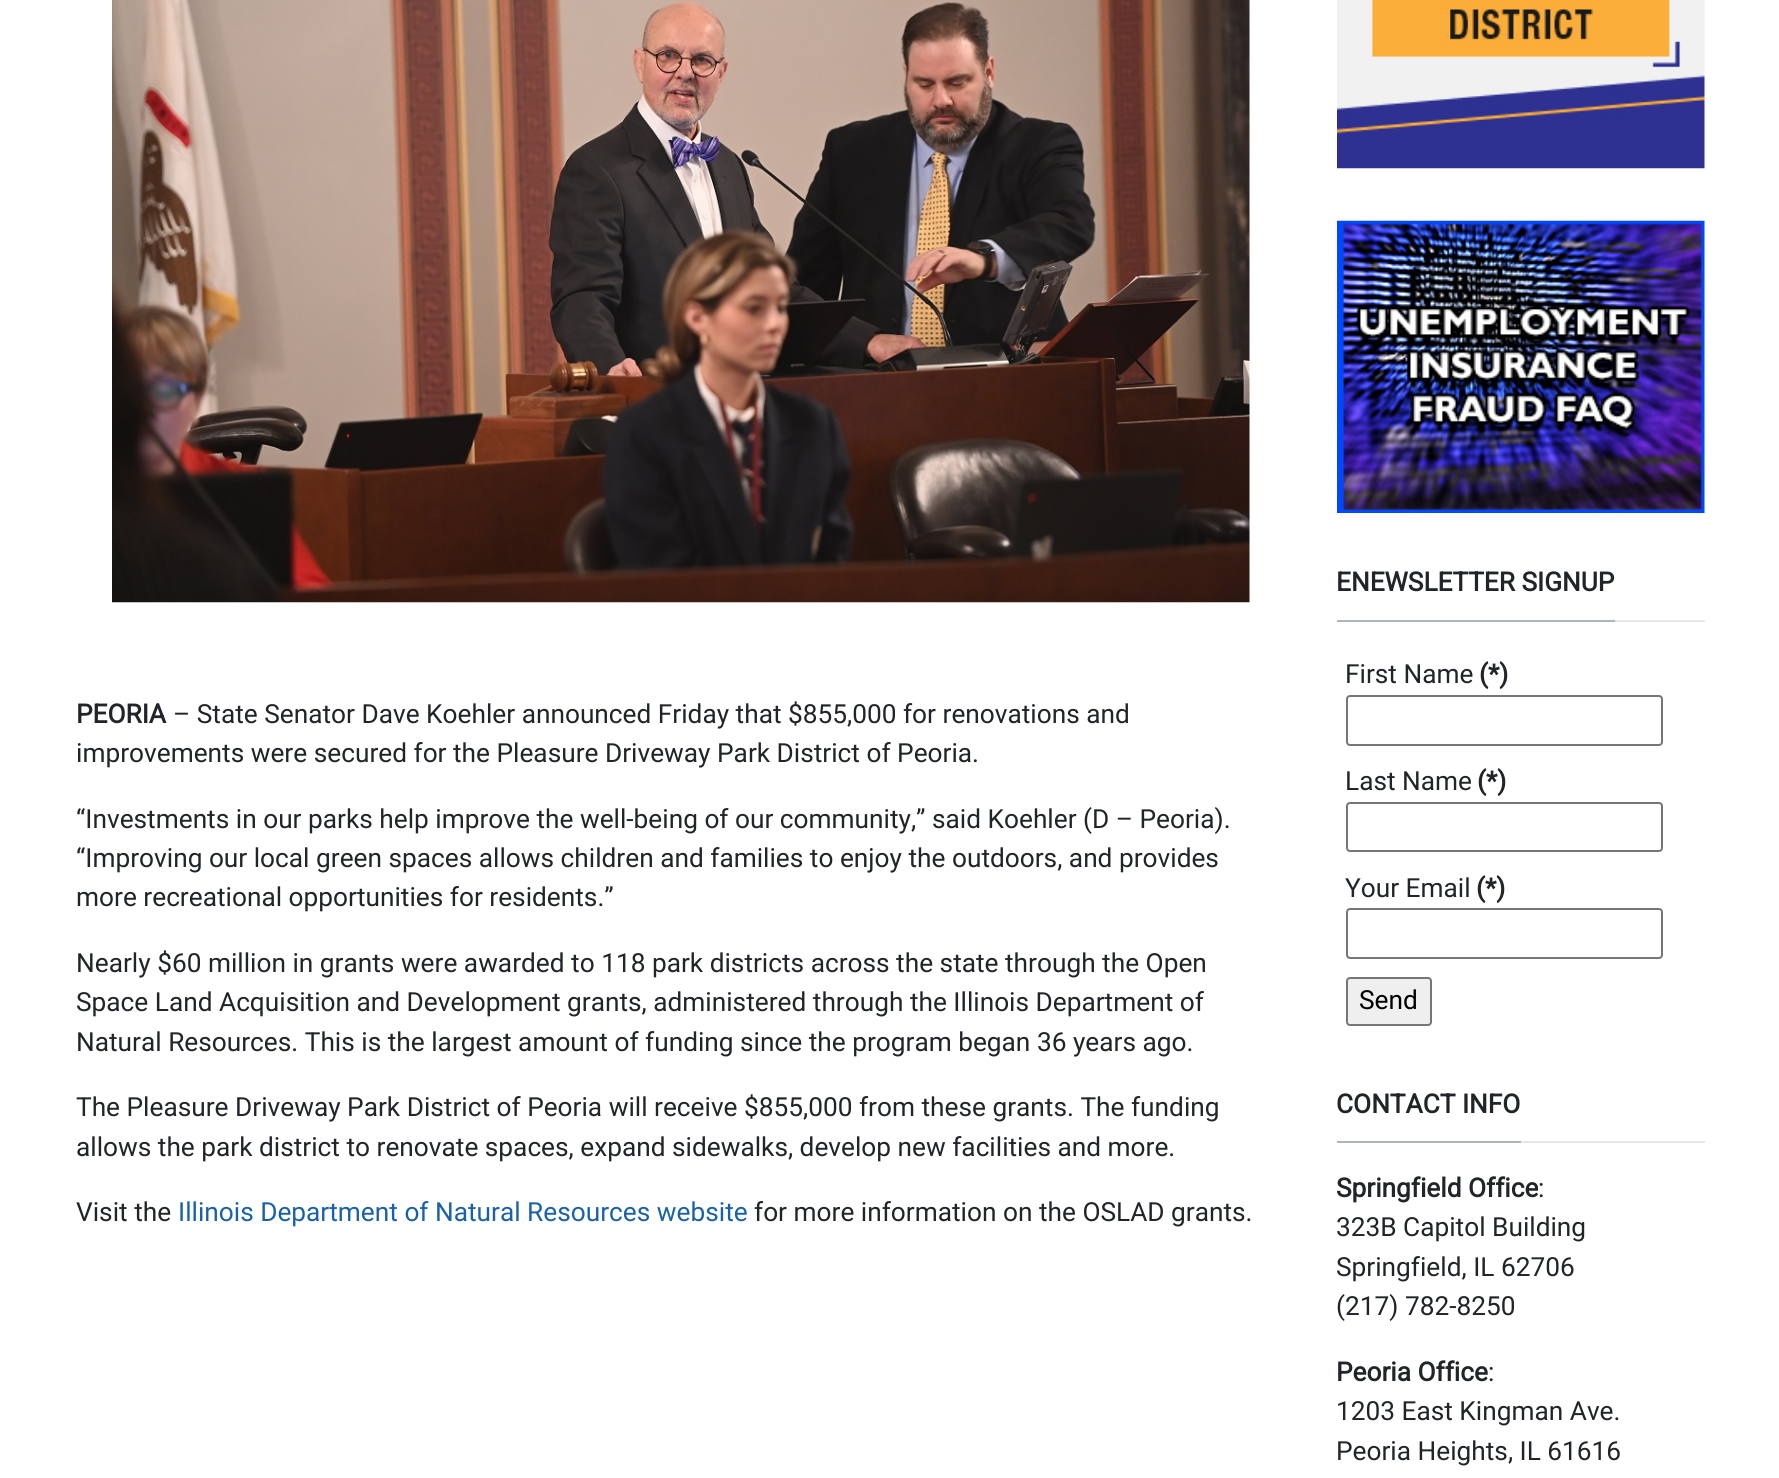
#include <cairo.h>
#include <math.h>
#include <stddef.h>

static cairo_t *ctx;

static void use_color(int r, int g, int b) {
    cairo_set_source_rgb(ctx, r / 255.0, g / 255.0, b / 255.0);
}

static void round_rect(double x, double y, double w, double h, double r) {
    cairo_new_sub_path(ctx);
    cairo_arc(ctx, x + w - r, y + h - r, r, 0, M_PI / 2);
    cairo_arc(ctx, x + r, y + h - r, r, M_PI / 2, M_PI);
    cairo_arc(ctx, x + r, y + r, r, M_PI, 1.5 * M_PI);
    cairo_arc(ctx, x + w - r, y + r, r, 1.5 * M_PI, 2 * M_PI);
    cairo_close_path(ctx);
}

static void picture(const char *path, double x, double y, double w, double h) {
    cairo_surface_t *image = cairo_image_surface_create_from_png(path);
    cairo_save(ctx);
    cairo_set_source_surface(ctx, image, x, y);
    cairo_rectangle(ctx, x, y, w, h);
    cairo_fill(ctx);
    cairo_restore(ctx);
    cairo_surface_destroy(image);
}

int main(void) {
    cairo_surface_t *surface = cairo_image_surface_create(CAIRO_FORMAT_RGB24, 1779, 1478);
    ctx = cairo_create(surface);
    cairo_font_options_t *options = cairo_font_options_create();
    cairo_font_options_set_hint_metrics(options, CAIRO_HINT_METRICS_OFF);
    cairo_font_options_set_hint_style(options, CAIRO_HINT_STYLE_NONE);
    cairo_set_font_options(ctx, options);
    cairo_set_miter_limit(ctx, 4);
    use_color(255, 255, 255);
    cairo_paint(ctx);
    picture("img1.png", 112, 0, 1138, 603);
    cairo_select_font_face(ctx, "Roboto", CAIRO_FONT_SLANT_NORMAL, CAIRO_FONT_WEIGHT_BOLD);
    cairo_set_font_size(ctx, 26.25);
    use_color(33, 37, 41);
    cairo_move_to(ctx, 76, 723);
    cairo_show_text(ctx, "PEORIA");
    cairo_select_font_face(ctx, "Roboto", CAIRO_FONT_SLANT_NORMAL, CAIRO_FONT_WEIGHT_NORMAL);
    cairo_move_to(ctx, 173, 723);
    cairo_show_text(ctx, "– State Senator Dave Koehler announced Friday that $855,000 for renovations and");
    cairo_move_to(ctx, 76, 762);
    cairo_show_text(ctx, "improvements were secured for the Pleasure Driveway Park District of Peoria.");
    cairo_move_to(ctx, 76, 828);
    cairo_show_text(ctx, "“Investments in our parks help improve the well-being of our community,” said Koehler (D – Peoria).");
    cairo_move_to(ctx, 76, 867);
    cairo_show_text(ctx, "“Improving our local green spaces allows children and families to enjoy the outdoors, and provides");
    cairo_move_to(ctx, 76, 906);
    cairo_show_text(ctx, "more recreational opportunities for residents.”");
    cairo_move_to(ctx, 76, 972);
    cairo_show_text(ctx, "Nearly $60 million in grants were awarded to 118 park districts across the state through the Open");
    cairo_move_to(ctx, 76, 1011);
    cairo_show_text(ctx, "Space Land Acquisition and Development grants, administered through the Illinois Department of");
    cairo_move_to(ctx, 76, 1051);
    cairo_show_text(ctx, "Natural Resources. This is the largest amount of funding since the program began 36 years ago.");
    cairo_move_to(ctx, 76, 1116);
    cairo_show_text(ctx, "The Pleasure Driveway Park District of Peoria will receive $855,000 from these grants. The funding");
    cairo_move_to(ctx, 76, 1156);
    cairo_show_text(ctx, "allows the park district to renovate spaces, expand sidewalks, develop new facilities and more.");
    cairo_move_to(ctx, 76, 1221);
    cairo_show_text(ctx, "Visit the");
    use_color(26, 97, 171);
    cairo_move_to(ctx, 178, 1221);
    cairo_show_text(ctx, "Illinois Department of Natural Resources website");
    use_color(33, 37, 41);
    cairo_move_to(ctx, 754, 1221);
    cairo_show_text(ctx, "for more information on the OSLAD grants.");
    picture("img2.png", 1337, 0, 368, 169);
    picture("img3.png", 1337, 220, 368, 293);
    use_color(231, 231, 232);
    cairo_rectangle(ctx, 1615, 620, 90, 2);
    cairo_fill(ctx);
    use_color(173, 181, 189);
    cairo_rectangle(ctx, 1337, 620, 278, 2);
    cairo_fill(ctx);
    cairo_select_font_face(ctx, "Roboto", CAIRO_FONT_SLANT_NORMAL, CAIRO_FONT_WEIGHT_BOLD);
    use_color(33, 37, 41);
    cairo_move_to(ctx, 1336, 591);
    cairo_show_text(ctx, "ENEWSLETTER SIGNUP");
    cairo_select_font_face(ctx, "Roboto", CAIRO_FONT_SLANT_NORMAL, CAIRO_FONT_WEIGHT_NORMAL);
    cairo_move_to(ctx, 1345, 683);
    cairo_show_text(ctx, "First Name");
    cairo_select_font_face(ctx, "Roboto", CAIRO_FONT_SLANT_NORMAL, CAIRO_FONT_WEIGHT_BOLD);
    cairo_move_to(ctx, 1479, 683);
    cairo_show_text(ctx, "(*)");
    round_rect(1347, 696, 315, 49, 3);
    use_color(118, 118, 118);
    cairo_stroke(ctx);
    cairo_select_font_face(ctx, "Roboto", CAIRO_FONT_SLANT_NORMAL, CAIRO_FONT_WEIGHT_NORMAL);
    use_color(33, 37, 41);
    cairo_move_to(ctx, 1345, 790);
    cairo_show_text(ctx, "Last Name");
    cairo_select_font_face(ctx, "Roboto", CAIRO_FONT_SLANT_NORMAL, CAIRO_FONT_WEIGHT_BOLD);
    cairo_move_to(ctx, 1477, 790);
    cairo_show_text(ctx, "(*)");
    round_rect(1347, 803, 315, 48, 3);
    use_color(118, 118, 118);
    cairo_stroke(ctx);
    cairo_select_font_face(ctx, "Roboto", CAIRO_FONT_SLANT_NORMAL, CAIRO_FONT_WEIGHT_NORMAL);
    use_color(33, 37, 41);
    cairo_move_to(ctx, 1345, 897);
    cairo_show_text(ctx, "Your Email");
    cairo_select_font_face(ctx, "Roboto", CAIRO_FONT_SLANT_NORMAL, CAIRO_FONT_WEIGHT_BOLD);
    cairo_move_to(ctx, 1476, 897);
    cairo_show_text(ctx, "(*)");
    round_rect(1347, 909, 315, 49, 3);
    use_color(118, 118, 118);
    cairo_stroke(ctx);
    use_color(239, 239, 239);
    round_rect(1347, 978, 84, 47, 3);
    cairo_fill_preserve(ctx);
    use_color(118, 118, 118);
    cairo_stroke(ctx);
    cairo_select_font_face(ctx, "Roboto", CAIRO_FONT_SLANT_NORMAL, CAIRO_FONT_WEIGHT_NORMAL);
    use_color(0, 0, 0);
    cairo_move_to(ctx, 1359, 1009);
    cairo_show_text(ctx, "Send");
    use_color(231, 231, 232);
    cairo_rectangle(ctx, 1521, 1141, 184, 2);
    cairo_fill(ctx);
    use_color(173, 181, 189);
    cairo_rectangle(ctx, 1337, 1141, 184, 2);
    cairo_fill(ctx);
    cairo_select_font_face(ctx, "Roboto", CAIRO_FONT_SLANT_NORMAL, CAIRO_FONT_WEIGHT_BOLD);
    use_color(33, 37, 41);
    cairo_move_to(ctx, 1336, 1113);
    cairo_show_text(ctx, "CONTACT INFO");
    cairo_move_to(ctx, 1336, 1197);
    cairo_show_text(ctx, "Springfield Office");
    cairo_select_font_face(ctx, "Roboto", CAIRO_FONT_SLANT_NORMAL, CAIRO_FONT_WEIGHT_NORMAL);
    cairo_move_to(ctx, 1538, 1197);
    cairo_show_text(ctx, ":");
    cairo_move_to(ctx, 1336, 1236);
    cairo_show_text(ctx, "323B Capitol Building");
    cairo_move_to(ctx, 1336, 1276);
    cairo_show_text(ctx, "Springfield, IL 62706");
    cairo_move_to(ctx, 1336, 1315);
    cairo_show_text(ctx, "(217) 782-8250");
    cairo_select_font_face(ctx, "Roboto", CAIRO_FONT_SLANT_NORMAL, CAIRO_FONT_WEIGHT_BOLD);
    cairo_move_to(ctx, 1336, 1381);
    cairo_show_text(ctx, "Peoria Office");
    cairo_select_font_face(ctx, "Roboto", CAIRO_FONT_SLANT_NORMAL, CAIRO_FONT_WEIGHT_NORMAL);
    cairo_move_to(ctx, 1488, 1381);
    cairo_show_text(ctx, ":");
    cairo_move_to(ctx, 1336, 1420);
    cairo_show_text(ctx, "1203 East Kingman Ave.");
    cairo_move_to(ctx, 1336, 1460);
    cairo_show_text(ctx, "Peoria Heights, IL 61616");
    cairo_surface_write_to_png(surface, "result.png");
    cairo_font_options_destroy(options);
    cairo_destroy(ctx);
    cairo_surface_destroy(surface);
    return 0;
}
